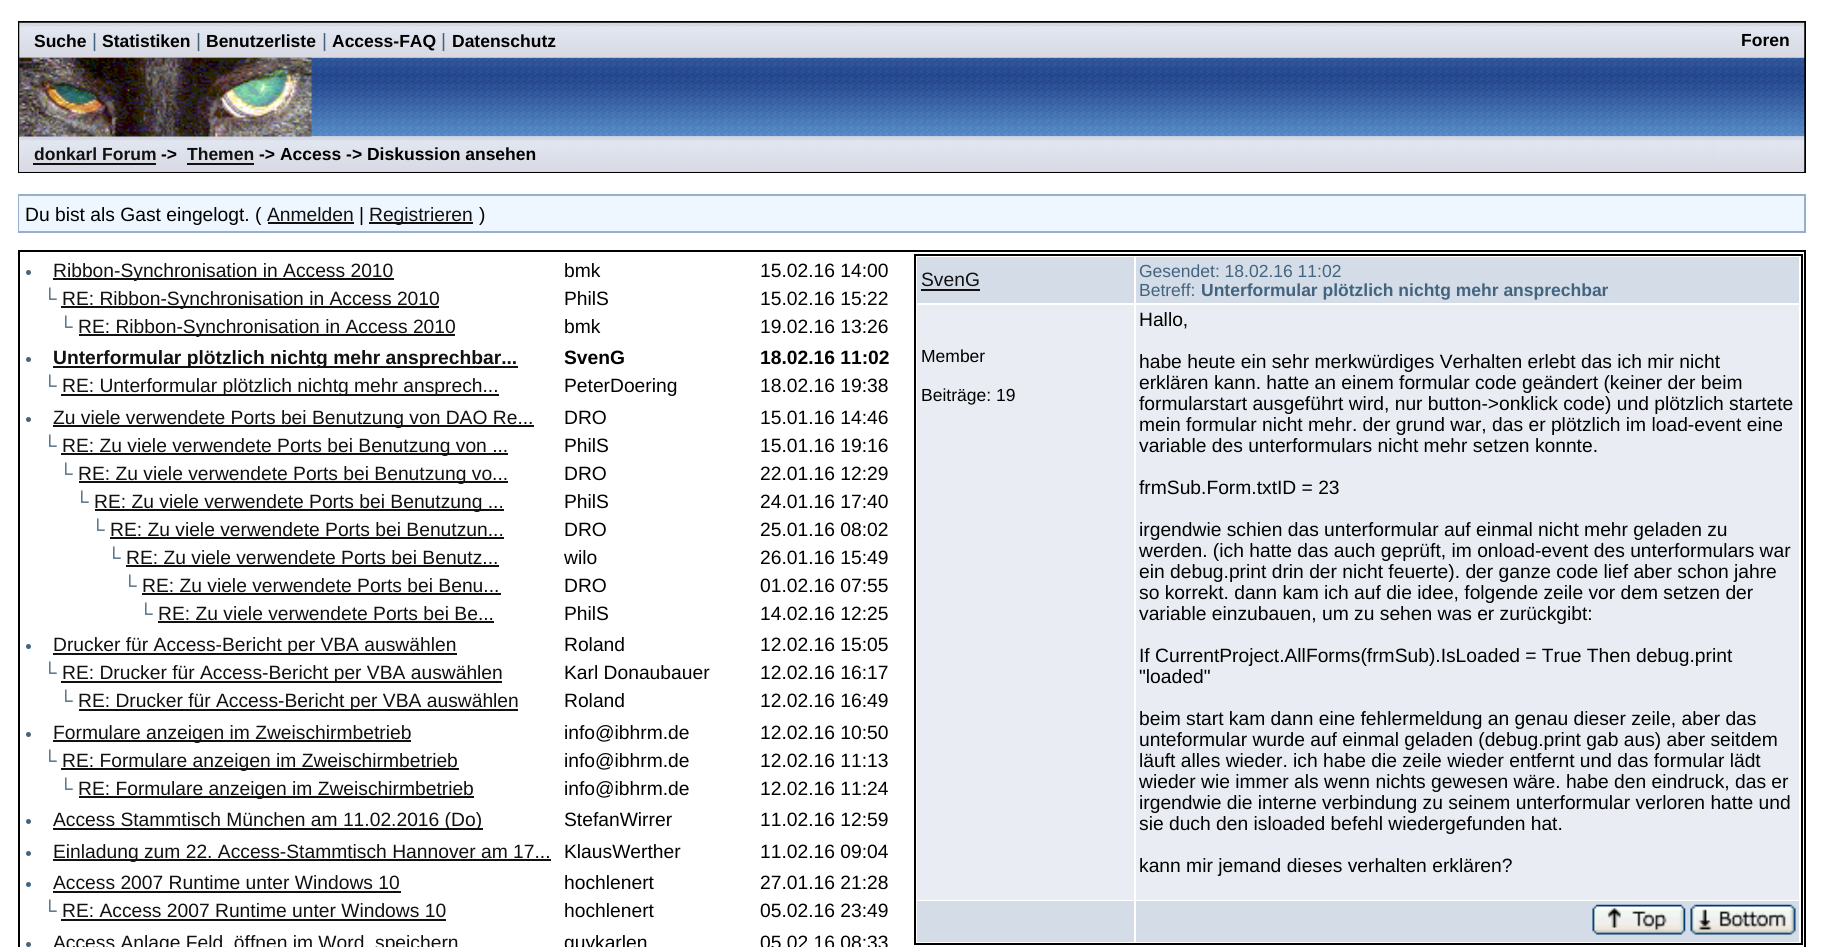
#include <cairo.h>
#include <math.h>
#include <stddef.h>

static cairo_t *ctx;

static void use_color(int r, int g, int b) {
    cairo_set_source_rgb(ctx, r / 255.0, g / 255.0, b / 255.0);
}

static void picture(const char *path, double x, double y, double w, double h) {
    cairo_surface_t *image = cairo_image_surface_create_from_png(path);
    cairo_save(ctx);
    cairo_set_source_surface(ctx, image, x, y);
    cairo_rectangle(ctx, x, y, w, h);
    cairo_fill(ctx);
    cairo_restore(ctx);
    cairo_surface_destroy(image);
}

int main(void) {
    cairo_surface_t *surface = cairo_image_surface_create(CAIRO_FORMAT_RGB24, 1822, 947);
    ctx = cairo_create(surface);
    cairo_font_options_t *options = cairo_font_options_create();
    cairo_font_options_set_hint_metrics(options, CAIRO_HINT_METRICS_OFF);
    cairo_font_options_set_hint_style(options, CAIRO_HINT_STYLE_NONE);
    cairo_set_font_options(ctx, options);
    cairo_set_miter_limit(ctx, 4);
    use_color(255, 255, 255);
    cairo_paint(ctx);
    cairo_rectangle(ctx, 19, 22, 1786, 150);
    use_color(0, 0, 0);
    cairo_stroke(ctx);
    picture("img1.png", 19, 22, 1786, 36);
    cairo_select_font_face(ctx, "Liberation Sans", CAIRO_FONT_SLANT_NORMAL, CAIRO_FONT_WEIGHT_BOLD);
    cairo_set_font_size(ctx, 17.5);
    cairo_move_to(ctx, 34, 47);
    cairo_show_text(ctx, "Suche");
    cairo_select_font_face(ctx, "Liberation Sans", CAIRO_FONT_SLANT_NORMAL, CAIRO_FONT_WEIGHT_NORMAL);
    cairo_set_font_size(ctx, 19.25);
    use_color(67, 100, 126);
    cairo_move_to(ctx, 92, 47);
    cairo_show_text(ctx, "|");
    cairo_select_font_face(ctx, "Liberation Sans", CAIRO_FONT_SLANT_NORMAL, CAIRO_FONT_WEIGHT_BOLD);
    cairo_set_font_size(ctx, 17.5);
    use_color(0, 0, 0);
    cairo_move_to(ctx, 102, 47);
    cairo_show_text(ctx, "Statistiken");
    cairo_select_font_face(ctx, "Liberation Sans", CAIRO_FONT_SLANT_NORMAL, CAIRO_FONT_WEIGHT_NORMAL);
    cairo_set_font_size(ctx, 19.25);
    use_color(67, 100, 126);
    cairo_move_to(ctx, 196, 47);
    cairo_show_text(ctx, "|");
    cairo_select_font_face(ctx, "Liberation Sans", CAIRO_FONT_SLANT_NORMAL, CAIRO_FONT_WEIGHT_BOLD);
    cairo_set_font_size(ctx, 17.5);
    use_color(0, 0, 0);
    cairo_move_to(ctx, 206, 47);
    cairo_show_text(ctx, "Benutzerliste");
    cairo_select_font_face(ctx, "Liberation Sans", CAIRO_FONT_SLANT_NORMAL, CAIRO_FONT_WEIGHT_NORMAL);
    cairo_set_font_size(ctx, 19.25);
    use_color(67, 100, 126);
    cairo_move_to(ctx, 322, 47);
    cairo_show_text(ctx, "|");
    cairo_select_font_face(ctx, "Liberation Sans", CAIRO_FONT_SLANT_NORMAL, CAIRO_FONT_WEIGHT_BOLD);
    cairo_set_font_size(ctx, 17.5);
    use_color(0, 0, 0);
    cairo_move_to(ctx, 332, 47);
    cairo_show_text(ctx, "Access-FAQ");
    cairo_select_font_face(ctx, "Liberation Sans", CAIRO_FONT_SLANT_NORMAL, CAIRO_FONT_WEIGHT_NORMAL);
    cairo_set_font_size(ctx, 19.25);
    use_color(67, 100, 126);
    cairo_move_to(ctx, 441, 47);
    cairo_show_text(ctx, "|");
    cairo_select_font_face(ctx, "Liberation Sans", CAIRO_FONT_SLANT_NORMAL, CAIRO_FONT_WEIGHT_BOLD);
    cairo_set_font_size(ctx, 17.5);
    use_color(0, 0, 0);
    cairo_move_to(ctx, 452, 47);
    cairo_show_text(ctx, "Datenschutz");
    cairo_move_to(ctx, 1741, 46);
    cairo_show_text(ctx, "Foren");
    picture("img2.png", 19, 57, 1786, 80);
    use_color(208, 215, 221);
    cairo_rectangle(ctx, 19, 137, 1694, 35);
    cairo_fill(ctx);
    picture("img4.png", 19, 136, 1695, 36);
    picture("img3.png", 19, 57, 293, 80);
    use_color(17, 17, 17);
    cairo_move_to(ctx, 34, 160);
    cairo_show_text(ctx, "donkarl Forum");
    cairo_rectangle(ctx, 33, 163, 123, 2);
    cairo_fill(ctx);
    use_color(0, 0, 0);
    cairo_move_to(ctx, 161, 160);
    cairo_show_text(ctx, "->");
    use_color(17, 17, 17);
    cairo_move_to(ctx, 187, 160);
    cairo_show_text(ctx, "Themen");
    cairo_rectangle(ctx, 187, 163, 67, 2);
    cairo_fill(ctx);
    use_color(0, 0, 0);
    cairo_move_to(ctx, 259, 160);
    cairo_show_text(ctx, "-> Access -> Diskussion ansehen");
    use_color(208, 215, 221);
    cairo_rectangle(ctx, 1713, 137, 91, 35);
    cairo_fill(ctx);
    picture("img5.png", 1713, 136, 92, 36);
    cairo_rectangle(ctx, 19, 195, 1786, 37);
    use_color(150, 175, 205);
    cairo_stroke(ctx);
    use_color(238, 246, 255);
    cairo_rectangle(ctx, 19, 196, 1785, 35);
    cairo_fill(ctx);
    cairo_select_font_face(ctx, "Liberation Sans", CAIRO_FONT_SLANT_NORMAL, CAIRO_FONT_WEIGHT_NORMAL);
    cairo_set_font_size(ctx, 19.25);
    use_color(0, 0, 0);
    cairo_move_to(ctx, 25, 221);
    cairo_show_text(ctx, "Du bist als Gast eingelogt. (");
    use_color(17, 17, 17);
    cairo_move_to(ctx, 267, 221);
    cairo_show_text(ctx, "Anmelden");
    cairo_rectangle(ctx, 268, 222, 86, 2);
    cairo_fill(ctx);
    use_color(0, 0, 0);
    cairo_move_to(ctx, 359, 221);
    cairo_show_text(ctx, "|");
    use_color(17, 17, 17);
    cairo_rectangle(ctx, 369, 222, 104, 2);
    cairo_fill(ctx);
    cairo_move_to(ctx, 369, 221);
    cairo_show_text(ctx, "Registrieren");
    use_color(0, 0, 0);
    cairo_move_to(ctx, 479, 221);
    cairo_show_text(ctx, ")");
    cairo_rectangle(ctx, 19, 251, 1786, 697);
    cairo_stroke(ctx);
    use_color(67, 100, 126);
    cairo_arc(ctx, 28.5, 272.5, 2.5, 0, 2 * M_PI);
    cairo_fill(ctx);
    use_color(17, 17, 17);
    cairo_rectangle(ctx, 53, 278, 341, 2);
    cairo_fill(ctx);
    cairo_move_to(ctx, 53, 277);
    cairo_show_text(ctx, "Ribbon-Synchronisation in Access 2010");
    use_color(0, 0, 0);
    cairo_move_to(ctx, 564, 277);
    cairo_show_text(ctx, "bmk");
    cairo_move_to(ctx, 760, 277);
    cairo_show_text(ctx, "15.02.16 14:00");
    use_color(67, 100, 126);
    cairo_move_to(ctx, 43, 305);
    cairo_show_text(ctx, "└");
    use_color(17, 17, 17);
    cairo_rectangle(ctx, 61, 306, 378, 2);
    cairo_fill(ctx);
    cairo_move_to(ctx, 62, 305);
    cairo_show_text(ctx, "RE: Ribbon-Synchronisation in Access 2010");
    use_color(0, 0, 0);
    cairo_move_to(ctx, 564, 305);
    cairo_show_text(ctx, "PhilS");
    cairo_move_to(ctx, 760, 305);
    cairo_show_text(ctx, "15.02.16 15:22");
    use_color(67, 100, 126);
    cairo_move_to(ctx, 59, 333);
    cairo_show_text(ctx, "└");
    use_color(17, 17, 17);
    cairo_rectangle(ctx, 79, 334, 376, 2);
    cairo_fill(ctx);
    cairo_move_to(ctx, 78, 333);
    cairo_show_text(ctx, "RE: Ribbon-Synchronisation in Access 2010");
    use_color(0, 0, 0);
    cairo_move_to(ctx, 564, 333);
    cairo_show_text(ctx, "bmk");
    cairo_move_to(ctx, 760, 333);
    cairo_show_text(ctx, "19.02.16 13:26");
    use_color(67, 100, 126);
    cairo_new_path(ctx);
    cairo_arc(ctx, 28.5, 359.5, 2.5, 0, 2 * M_PI);
    cairo_fill(ctx);
    use_color(17, 17, 17);
    cairo_rectangle(ctx, 53, 366, 465, 2);
    cairo_fill(ctx);
    cairo_select_font_face(ctx, "Liberation Sans", CAIRO_FONT_SLANT_NORMAL, CAIRO_FONT_WEIGHT_BOLD);
    cairo_move_to(ctx, 53, 364);
    cairo_show_text(ctx, "Unterformular plötzlich nichtg mehr ansprechbar...");
    use_color(0, 0, 0);
    cairo_move_to(ctx, 564, 364);
    cairo_show_text(ctx, "SvenG");
    cairo_move_to(ctx, 760, 364);
    cairo_show_text(ctx, "18.02.16 11:02");
    cairo_select_font_face(ctx, "Liberation Sans", CAIRO_FONT_SLANT_NORMAL, CAIRO_FONT_WEIGHT_NORMAL);
    use_color(67, 100, 126);
    cairo_move_to(ctx, 43, 392);
    cairo_show_text(ctx, "└");
    use_color(17, 17, 17);
    cairo_rectangle(ctx, 61, 394, 438, 2);
    cairo_fill(ctx);
    cairo_move_to(ctx, 62, 392);
    cairo_show_text(ctx, "RE: Unterformular plötzlich nichtg mehr ansprech...");
    use_color(0, 0, 0);
    cairo_move_to(ctx, 564, 392);
    cairo_show_text(ctx, "PeterDoering");
    cairo_move_to(ctx, 760, 392);
    cairo_show_text(ctx, "18.02.16 19:38");
    use_color(67, 100, 126);
    cairo_new_path(ctx);
    cairo_arc(ctx, 28.5, 419.5, 2.5, 0, 2 * M_PI);
    cairo_fill(ctx);
    use_color(17, 17, 17);
    cairo_rectangle(ctx, 53, 425, 481, 2);
    cairo_fill(ctx);
    cairo_move_to(ctx, 53, 424);
    cairo_show_text(ctx, "Zu viele verwendete Ports bei Benutzung von DAO Re...");
    use_color(0, 0, 0);
    cairo_move_to(ctx, 564, 424);
    cairo_show_text(ctx, "DRO");
    cairo_move_to(ctx, 760, 424);
    cairo_show_text(ctx, "15.01.16 14:46");
    use_color(67, 100, 126);
    cairo_move_to(ctx, 43, 452);
    cairo_show_text(ctx, "└");
    use_color(17, 17, 17);
    cairo_rectangle(ctx, 61, 453, 447, 2);
    cairo_fill(ctx);
    cairo_move_to(ctx, 62, 452);
    cairo_show_text(ctx, "RE: Zu viele verwendete Ports bei Benutzung von ...");
    use_color(0, 0, 0);
    cairo_move_to(ctx, 564, 452);
    cairo_show_text(ctx, "PhilS");
    cairo_move_to(ctx, 760, 452);
    cairo_show_text(ctx, "15.01.16 19:16");
    use_color(67, 100, 126);
    cairo_move_to(ctx, 59, 480);
    cairo_show_text(ctx, "└");
    use_color(17, 17, 17);
    cairo_rectangle(ctx, 79, 481, 429, 2);
    cairo_fill(ctx);
    cairo_move_to(ctx, 78, 480);
    cairo_show_text(ctx, "RE: Zu viele verwendete Ports bei Benutzung vo...");
    use_color(0, 0, 0);
    cairo_move_to(ctx, 564, 480);
    cairo_show_text(ctx, "DRO");
    cairo_move_to(ctx, 760, 480);
    cairo_show_text(ctx, "22.01.16 12:29");
    use_color(67, 100, 126);
    cairo_move_to(ctx, 75, 508);
    cairo_show_text(ctx, "└");
    use_color(17, 17, 17);
    cairo_rectangle(ctx, 95, 509, 409, 2);
    cairo_fill(ctx);
    cairo_move_to(ctx, 94, 508);
    cairo_show_text(ctx, "RE: Zu viele verwendete Ports bei Benutzung ...");
    use_color(0, 0, 0);
    cairo_move_to(ctx, 564, 508);
    cairo_show_text(ctx, "PhilS");
    cairo_move_to(ctx, 760, 508);
    cairo_show_text(ctx, "24.01.16 17:40");
    use_color(67, 100, 126);
    cairo_move_to(ctx, 91, 536);
    cairo_show_text(ctx, "└");
    use_color(17, 17, 17);
    cairo_move_to(ctx, 110, 536);
    cairo_show_text(ctx, "RE: Zu viele verwendete Ports bei Benutzun...");
    cairo_rectangle(ctx, 110, 537, 394, 2);
    cairo_fill(ctx);
    use_color(0, 0, 0);
    cairo_move_to(ctx, 564, 536);
    cairo_show_text(ctx, "DRO");
    cairo_move_to(ctx, 760, 536);
    cairo_show_text(ctx, "25.01.16 08:02");
    use_color(67, 100, 126);
    cairo_move_to(ctx, 107, 564);
    cairo_show_text(ctx, "└");
    use_color(17, 17, 17);
    cairo_move_to(ctx, 126, 564);
    cairo_show_text(ctx, "RE: Zu viele verwendete Ports bei Benutz...");
    cairo_rectangle(ctx, 126, 565, 373, 2);
    cairo_fill(ctx);
    use_color(0, 0, 0);
    cairo_move_to(ctx, 564, 564);
    cairo_show_text(ctx, "wilo");
    cairo_move_to(ctx, 760, 564);
    cairo_show_text(ctx, "26.01.16 15:49");
    use_color(67, 100, 126);
    cairo_move_to(ctx, 123, 592);
    cairo_show_text(ctx, "└");
    use_color(17, 17, 17);
    cairo_move_to(ctx, 142, 592);
    cairo_show_text(ctx, "RE: Zu viele verwendete Ports bei Benu...");
    cairo_rectangle(ctx, 142, 593, 359, 2);
    cairo_fill(ctx);
    use_color(0, 0, 0);
    cairo_move_to(ctx, 564, 592);
    cairo_show_text(ctx, "DRO");
    cairo_move_to(ctx, 760, 592);
    cairo_show_text(ctx, "01.02.16 07:55");
    use_color(67, 100, 126);
    cairo_move_to(ctx, 139, 620);
    cairo_show_text(ctx, "└");
    use_color(17, 17, 17);
    cairo_move_to(ctx, 158, 620);
    cairo_show_text(ctx, "RE: Zu viele verwendete Ports bei Be...");
    cairo_rectangle(ctx, 158, 621, 336, 2);
    cairo_fill(ctx);
    use_color(0, 0, 0);
    cairo_move_to(ctx, 564, 620);
    cairo_show_text(ctx, "PhilS");
    cairo_move_to(ctx, 760, 620);
    cairo_show_text(ctx, "14.02.16 12:25");
    use_color(67, 100, 126);
    cairo_new_path(ctx);
    cairo_arc(ctx, 28.5, 646.5, 2.5, 0, 2 * M_PI);
    cairo_fill(ctx);
    use_color(17, 17, 17);
    cairo_rectangle(ctx, 53, 653, 404, 2);
    cairo_fill(ctx);
    cairo_move_to(ctx, 53, 651);
    cairo_show_text(ctx, "Drucker für Access-Bericht per VBA auswählen");
    use_color(0, 0, 0);
    cairo_move_to(ctx, 564, 651);
    cairo_show_text(ctx, "Roland");
    cairo_move_to(ctx, 760, 651);
    cairo_show_text(ctx, "12.02.16 15:05");
    use_color(67, 100, 126);
    cairo_move_to(ctx, 43, 679);
    cairo_show_text(ctx, "└");
    use_color(17, 17, 17);
    cairo_rectangle(ctx, 61, 681, 441, 2);
    cairo_fill(ctx);
    cairo_move_to(ctx, 62, 679);
    cairo_show_text(ctx, "RE: Drucker für Access-Bericht per VBA auswählen");
    use_color(0, 0, 0);
    cairo_move_to(ctx, 564, 679);
    cairo_show_text(ctx, "Karl Donaubauer");
    cairo_move_to(ctx, 760, 679);
    cairo_show_text(ctx, "12.02.16 16:17");
    use_color(67, 100, 126);
    cairo_move_to(ctx, 59, 707);
    cairo_show_text(ctx, "└");
    use_color(17, 17, 17);
    cairo_rectangle(ctx, 79, 709, 439, 2);
    cairo_fill(ctx);
    cairo_move_to(ctx, 78, 707);
    cairo_show_text(ctx, "RE: Drucker für Access-Bericht per VBA auswählen");
    use_color(0, 0, 0);
    cairo_move_to(ctx, 564, 707);
    cairo_show_text(ctx, "Roland");
    cairo_move_to(ctx, 760, 707);
    cairo_show_text(ctx, "12.02.16 16:49");
    use_color(67, 100, 126);
    cairo_new_path(ctx);
    cairo_arc(ctx, 28.5, 734.5, 2.5, 0, 2 * M_PI);
    cairo_fill(ctx);
    use_color(17, 17, 17);
    cairo_rectangle(ctx, 53, 740, 358, 2);
    cairo_fill(ctx);
    cairo_move_to(ctx, 53, 739);
    cairo_show_text(ctx, "Formulare anzeigen im Zweischirmbetrieb");
    use_color(0, 0, 0);
    cairo_move_to(ctx, 564, 739);
    cairo_show_text(ctx, "info@ibhrm.de");
    cairo_move_to(ctx, 760, 739);
    cairo_show_text(ctx, "12.02.16 10:50");
    use_color(67, 100, 126);
    cairo_move_to(ctx, 43, 767);
    cairo_show_text(ctx, "└");
    use_color(17, 17, 17);
    cairo_rectangle(ctx, 61, 768, 398, 2);
    cairo_fill(ctx);
    cairo_move_to(ctx, 62, 767);
    cairo_show_text(ctx, "RE: Formulare anzeigen im Zweischirmbetrieb");
    use_color(0, 0, 0);
    cairo_move_to(ctx, 564, 767);
    cairo_show_text(ctx, "info@ibhrm.de");
    cairo_move_to(ctx, 760, 767);
    cairo_show_text(ctx, "12.02.16 11:13");
    use_color(67, 100, 126);
    cairo_move_to(ctx, 59, 795);
    cairo_show_text(ctx, "└");
    use_color(17, 17, 17);
    cairo_rectangle(ctx, 79, 796, 395, 2);
    cairo_fill(ctx);
    cairo_move_to(ctx, 78, 795);
    cairo_show_text(ctx, "RE: Formulare anzeigen im Zweischirmbetrieb");
    use_color(0, 0, 0);
    cairo_move_to(ctx, 564, 795);
    cairo_show_text(ctx, "info@ibhrm.de");
    cairo_move_to(ctx, 760, 795);
    cairo_show_text(ctx, "12.02.16 11:24");
    use_color(67, 100, 126);
    cairo_new_path(ctx);
    cairo_arc(ctx, 28.5, 821.5, 2.5, 0, 2 * M_PI);
    cairo_fill(ctx);
    use_color(17, 17, 17);
    cairo_rectangle(ctx, 53, 828, 430, 2);
    cairo_fill(ctx);
    cairo_move_to(ctx, 53, 826);
    cairo_show_text(ctx, "Access Stammtisch München am 11.02.2016 (Do)");
    use_color(0, 0, 0);
    cairo_move_to(ctx, 564, 826);
    cairo_show_text(ctx, "StefanWirrer");
    cairo_move_to(ctx, 760, 826);
    cairo_show_text(ctx, "11.02.16 12:59");
    use_color(67, 100, 126);
    cairo_new_path(ctx);
    cairo_arc(ctx, 28.5, 853.5, 2.5, 0, 2 * M_PI);
    cairo_fill(ctx);
    use_color(17, 17, 17);
    cairo_rectangle(ctx, 53, 859, 498, 2);
    cairo_fill(ctx);
    cairo_move_to(ctx, 53, 858);
    cairo_show_text(ctx, "Einladung zum 22. Access-Stammtisch Hannover am 17...");
    use_color(0, 0, 0);
    cairo_move_to(ctx, 564, 858);
    cairo_show_text(ctx, "KlausWerther");
    cairo_move_to(ctx, 760, 858);
    cairo_show_text(ctx, "11.02.16 09:04");
    use_color(67, 100, 126);
    cairo_new_path(ctx);
    cairo_arc(ctx, 28.5, 884.5, 2.5, 0, 2 * M_PI);
    cairo_fill(ctx);
    use_color(17, 17, 17);
    cairo_move_to(ctx, 53, 889);
    cairo_show_text(ctx, "Access 2007 Runtime unter Windows 10");
    cairo_rectangle(ctx, 53, 891, 348, 2);
    cairo_fill(ctx);
    use_color(0, 0, 0);
    cairo_move_to(ctx, 564, 889);
    cairo_show_text(ctx, "hochlenert");
    cairo_move_to(ctx, 760, 889);
    cairo_show_text(ctx, "27.01.16 21:28");
    use_color(67, 100, 126);
    cairo_move_to(ctx, 43, 917);
    cairo_show_text(ctx, "└");
    use_color(17, 17, 17);
    cairo_move_to(ctx, 62, 917);
    cairo_show_text(ctx, "RE: Access 2007 Runtime unter Windows 10");
    cairo_rectangle(ctx, 61, 919, 385, 2);
    cairo_fill(ctx);
    use_color(0, 0, 0);
    cairo_move_to(ctx, 564, 917);
    cairo_show_text(ctx, "hochlenert");
    cairo_move_to(ctx, 760, 917);
    cairo_show_text(ctx, "05.02.16 23:49");
    use_color(67, 100, 126);
    cairo_new_path(ctx);
    cairo_arc(ctx, 28.5, 944.5, 2.5, 0, 2 * M_PI);
    cairo_fill(ctx);
    use_color(17, 17, 17);
    cairo_move_to(ctx, 53, 949);
    cairo_show_text(ctx, "Access Anlage Feld, öffnen im Word, speichern");
    use_color(0, 0, 0);
    cairo_move_to(ctx, 564, 949);
    cairo_show_text(ctx, "guykarlen");
    cairo_move_to(ctx, 760, 949);
    cairo_show_text(ctx, "05.02.16 08:33");
    cairo_rectangle(ctx, 915, 255, 887, 689);
    cairo_stroke(ctx);
    use_color(212, 220, 232);
    cairo_rectangle(ctx, 917, 257, 217, 46);
    cairo_fill(ctx);
    use_color(17, 17, 17);
    cairo_move_to(ctx, 921, 286);
    cairo_show_text(ctx, "SvenG");
    cairo_rectangle(ctx, 921, 289, 59, 2);
    cairo_fill(ctx);
    use_color(212, 220, 232);
    cairo_rectangle(ctx, 1136, 257, 663, 46);
    cairo_fill(ctx);
    cairo_set_font_size(ctx, 17.5);
    use_color(67, 100, 126);
    cairo_move_to(ctx, 1139, 277);
    cairo_show_text(ctx, "Gesendet: 18.02.16 11:02");
    cairo_move_to(ctx, 1139, 296);
    cairo_show_text(ctx, "Betreff:");
    cairo_select_font_face(ctx, "Liberation Sans", CAIRO_FONT_SLANT_NORMAL, CAIRO_FONT_WEIGHT_BOLD);
    cairo_move_to(ctx, 1201, 296);
    cairo_show_text(ctx, "Unterformular plötzlich nichtg mehr ansprechbar");
    use_color(233, 237, 243);
    cairo_rectangle(ctx, 917, 305, 217, 595);
    cairo_fill(ctx);
    cairo_select_font_face(ctx, "Liberation Sans", CAIRO_FONT_SLANT_NORMAL, CAIRO_FONT_WEIGHT_NORMAL);
    use_color(0, 0, 0);
    cairo_move_to(ctx, 921, 362);
    cairo_show_text(ctx, "Member");
    cairo_move_to(ctx, 921, 401);
    cairo_show_text(ctx, "Beiträge: 19");
    use_color(233, 237, 243);
    cairo_rectangle(ctx, 1136, 305, 663, 595);
    cairo_fill(ctx);
    cairo_set_font_size(ctx, 19.25);
    use_color(0, 0, 0);
    cairo_move_to(ctx, 1139, 326);
    cairo_show_text(ctx, "Hallo,");
    cairo_move_to(ctx, 1139, 368);
    cairo_show_text(ctx, "habe heute ein sehr merkwürdiges Verhalten erlebt das ich mir nicht");
    cairo_move_to(ctx, 1139, 389);
    cairo_show_text(ctx, "erklären kann. hatte an einem formular code geändert (keiner der beim");
    cairo_move_to(ctx, 1139, 410);
    cairo_show_text(ctx, "formularstart ausgeführt wird, nur button->onklick code) und plötzlich startete");
    cairo_move_to(ctx, 1139, 431);
    cairo_show_text(ctx, "mein formular nicht mehr. der grund war, das er plötzlich im load-event eine");
    cairo_move_to(ctx, 1139, 452);
    cairo_show_text(ctx, "variable des unterformulars nicht mehr setzen konnte.");
    cairo_move_to(ctx, 1139, 494);
    cairo_show_text(ctx, "frmSub.Form.txtID = 23");
    cairo_move_to(ctx, 1139, 536);
    cairo_show_text(ctx, "irgendwie schien das unterformular auf einmal nicht mehr geladen zu");
    cairo_move_to(ctx, 1139, 557);
    cairo_show_text(ctx, "werden. (ich hatte das auch geprüft, im onload-event des unterformulars war");
    cairo_move_to(ctx, 1139, 578);
    cairo_show_text(ctx, "ein debug.print drin der nicht feuerte). der ganze code lief aber schon jahre");
    cairo_move_to(ctx, 1139, 599);
    cairo_show_text(ctx, "so korrekt. dann kam ich auf die idee, folgende zeile vor dem setzen der");
    cairo_move_to(ctx, 1139, 620);
    cairo_show_text(ctx, "variable einzubauen, um zu sehen was er zurückgibt:");
    cairo_move_to(ctx, 1139, 662);
    cairo_show_text(ctx, "If CurrentProject.AllForms(frmSub).IsLoaded = True Then debug.print");
    cairo_move_to(ctx, 1139, 683);
    cairo_show_text(ctx, "\"loaded\"");
    cairo_move_to(ctx, 1139, 725);
    cairo_show_text(ctx, "beim start kam dann eine fehlermeldung an genau dieser zeile, aber das");
    cairo_move_to(ctx, 1139, 746);
    cairo_show_text(ctx, "unteformular wurde auf einmal geladen (debug.print gab aus) aber seitdem");
    cairo_move_to(ctx, 1139, 767);
    cairo_show_text(ctx, "läuft alles wieder. ich habe die zeile wieder entfernt und das formular lädt");
    cairo_move_to(ctx, 1139, 788);
    cairo_show_text(ctx, "wieder wie immer als wenn nichts gewesen wäre. habe den eindruck, das er");
    cairo_move_to(ctx, 1139, 809);
    cairo_show_text(ctx, "irgendwie die interne verbindung zu seinem unterformular verloren hatte und");
    cairo_move_to(ctx, 1139, 830);
    cairo_show_text(ctx, "sie duch den isloaded befehl wiedergefunden hat.");
    cairo_move_to(ctx, 1139, 872);
    cairo_show_text(ctx, "kann mir jemand dieses verhalten erklären?");
    use_color(212, 220, 232);
    cairo_rectangle(ctx, 917, 901, 217, 41);
    cairo_fill(ctx);
    cairo_rectangle(ctx, 1136, 901, 663, 41);
    cairo_fill(ctx);
    picture("img6.png", 1592, 904, 94, 31);
    picture("img7.png", 1690, 904, 106, 31);
    cairo_surface_write_to_png(surface, "result.png");
    cairo_font_options_destroy(options);
    cairo_destroy(ctx);
    cairo_surface_destroy(surface);
    return 0;
}
